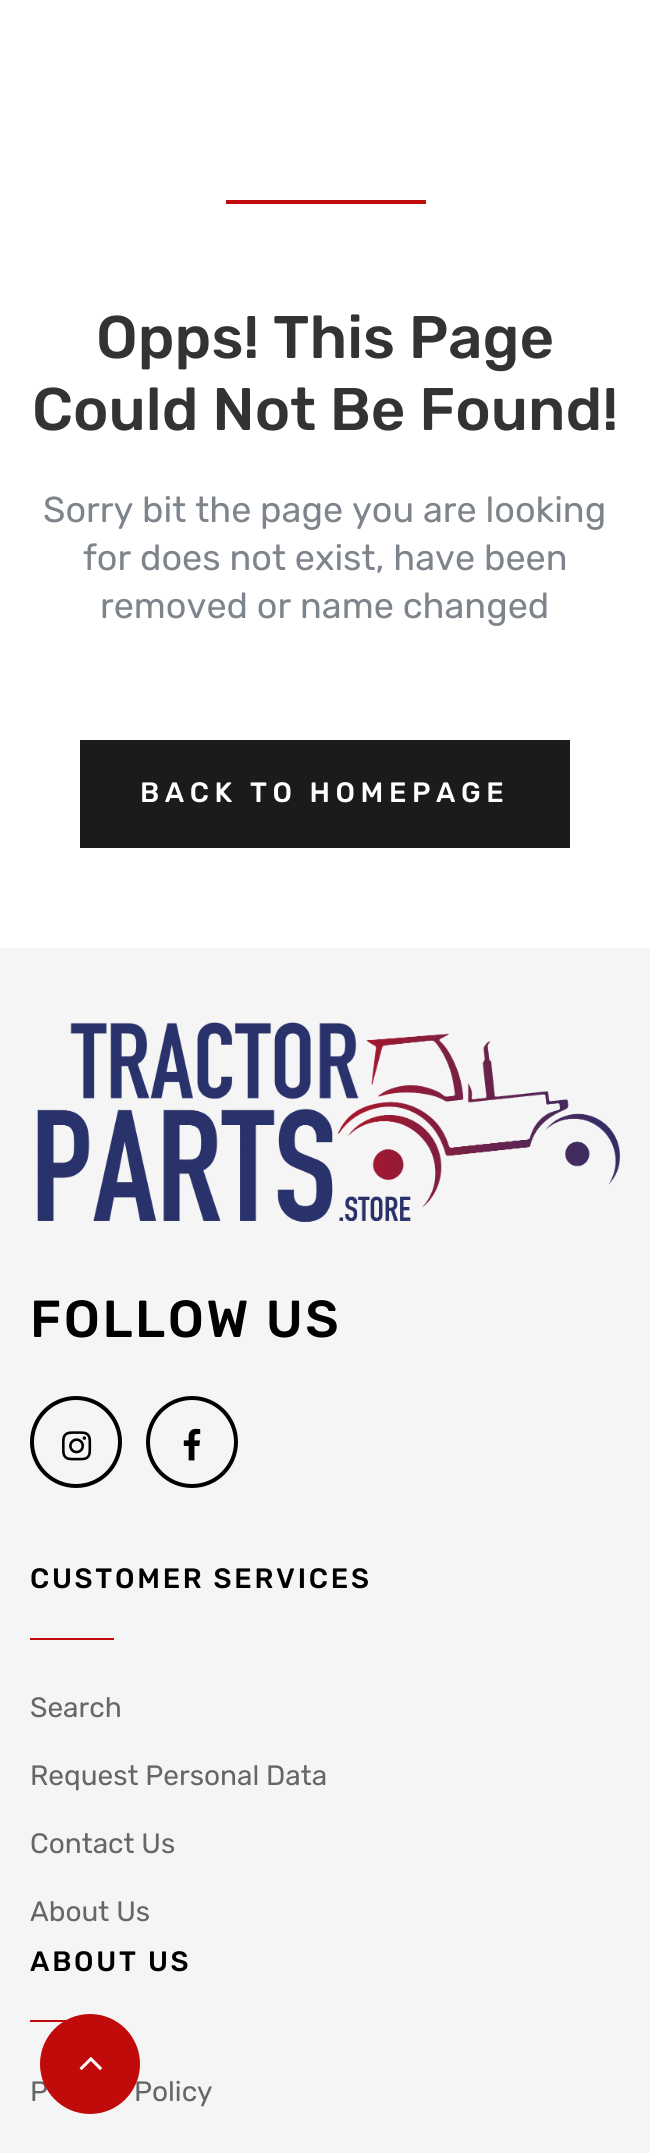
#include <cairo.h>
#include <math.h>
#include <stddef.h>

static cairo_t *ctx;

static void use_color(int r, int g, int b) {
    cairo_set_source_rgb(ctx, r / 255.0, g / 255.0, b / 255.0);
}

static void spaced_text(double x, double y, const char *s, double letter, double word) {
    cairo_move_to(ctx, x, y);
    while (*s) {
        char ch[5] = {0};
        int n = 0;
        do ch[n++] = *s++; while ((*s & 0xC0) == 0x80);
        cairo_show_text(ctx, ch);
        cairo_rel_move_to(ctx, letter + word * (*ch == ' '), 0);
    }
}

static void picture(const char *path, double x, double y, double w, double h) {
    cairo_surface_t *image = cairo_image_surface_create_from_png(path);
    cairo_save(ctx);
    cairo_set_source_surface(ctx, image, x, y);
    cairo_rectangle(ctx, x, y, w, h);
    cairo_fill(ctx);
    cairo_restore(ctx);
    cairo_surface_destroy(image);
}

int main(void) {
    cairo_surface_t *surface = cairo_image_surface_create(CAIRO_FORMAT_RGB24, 650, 2153);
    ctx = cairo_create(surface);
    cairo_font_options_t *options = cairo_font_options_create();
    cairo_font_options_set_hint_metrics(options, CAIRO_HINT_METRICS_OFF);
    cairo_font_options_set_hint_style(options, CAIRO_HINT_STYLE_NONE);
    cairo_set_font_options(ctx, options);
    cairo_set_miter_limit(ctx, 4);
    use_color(255, 255, 255);
    cairo_paint(ctx);
    use_color(193, 11, 11);
    cairo_rectangle(ctx, 226, 200, 200, 4);
    cairo_fill(ctx);
    cairo_select_font_face(ctx, "Rubik Medium", CAIRO_FONT_SLANT_NORMAL, CAIRO_FONT_WEIGHT_NORMAL);
    cairo_set_font_size(ctx, 60);
    use_color(51, 51, 51);
    cairo_move_to(ctx, 96, 358);
    cairo_show_text(ctx, "Opps! This Page");
    cairo_move_to(ctx, 32, 430);
    cairo_show_text(ctx, "Could Not Be Found!");
    cairo_select_font_face(ctx, "Rubik", CAIRO_FONT_SLANT_NORMAL, CAIRO_FONT_WEIGHT_NORMAL);
    cairo_set_font_size(ctx, 36);
    use_color(126, 132, 139);
    cairo_move_to(ctx, 43, 522);
    cairo_show_text(ctx, "Sorry bit the page you are looking");
    cairo_move_to(ctx, 83, 570);
    cairo_show_text(ctx, "for does not exist, have been");
    cairo_move_to(ctx, 100, 618);
    cairo_show_text(ctx, "removed or name changed");
    use_color(27, 27, 27);
    cairo_rectangle(ctx, 80, 740, 490, 108);
    cairo_fill(ctx);
    cairo_select_font_face(ctx, "Rubik Medium", CAIRO_FONT_SLANT_NORMAL, CAIRO_FONT_WEIGHT_NORMAL);
    cairo_set_font_size(ctx, 28);
    use_color(255, 255, 255);
    spaced_text(140, 802, "BACK TO HOMEPAGE", 5.6, 0);
    use_color(245, 245, 245);
    cairo_rectangle(ctx, 0, 948, 650, 1205);
    cairo_fill(ctx);
    picture("img1.png", 37, 1022, 583, 200);
    cairo_set_font_size(ctx, 52);
    use_color(0, 0, 0);
    spaced_text(30, 1337, "FOLLOW US", 2.5, 0);
    cairo_new_path(ctx);
    cairo_arc(ctx, 76, 1442, 44, 0, 2 * M_PI);
    cairo_set_line_width(ctx, 4);
    cairo_stroke(ctx);
    picture("img2.png", 62, 1431, 30, 30);
    cairo_arc(ctx, 192, 1442, 44, 0, 2 * M_PI);
    cairo_stroke(ctx);
    picture("img3.png", 183, 1428, 18, 33);
    cairo_set_font_size(ctx, 28);
    spaced_text(30, 1588, "CUSTOMER SERVICES", 2.75, 0);
    use_color(193, 11, 11);
    cairo_rectangle(ctx, 30, 1638, 84, 2);
    cairo_fill(ctx);
    cairo_select_font_face(ctx, "Rubik", CAIRO_FONT_SLANT_NORMAL, CAIRO_FONT_WEIGHT_NORMAL);
    use_color(102, 102, 102);
    cairo_move_to(ctx, 30, 1717);
    cairo_show_text(ctx, "Search");
    cairo_move_to(ctx, 30, 1785);
    cairo_show_text(ctx, "Request Personal Data");
    cairo_move_to(ctx, 30, 1853);
    cairo_show_text(ctx, "Contact Us");
    cairo_move_to(ctx, 30, 1921);
    cairo_show_text(ctx, "About Us");
    cairo_select_font_face(ctx, "Rubik Medium", CAIRO_FONT_SLANT_NORMAL, CAIRO_FONT_WEIGHT_NORMAL);
    use_color(0, 0, 0);
    spaced_text(30, 1971, "ABOUT US", 2.75, 0);
    use_color(193, 11, 11);
    cairo_rectangle(ctx, 30, 2020, 84, 2);
    cairo_fill(ctx);
    cairo_select_font_face(ctx, "Rubik", CAIRO_FONT_SLANT_NORMAL, CAIRO_FONT_WEIGHT_NORMAL);
    use_color(102, 102, 102);
    cairo_move_to(ctx, 30, 2101);
    cairo_show_text(ctx, "P");
    cairo_move_to(ctx, 134, 2101);
    cairo_show_text(ctx, "Policy");
    use_color(193, 11, 11);
    cairo_new_path(ctx);
    cairo_arc(ctx, 90, 2064, 50, 0, 2 * M_PI);
    cairo_fill(ctx);
    picture("img4.png", 79, 2057, 23, 13);
    cairo_surface_write_to_png(surface, "result.png");
    cairo_font_options_destroy(options);
    cairo_destroy(ctx);
    cairo_surface_destroy(surface);
    return 0;
}
